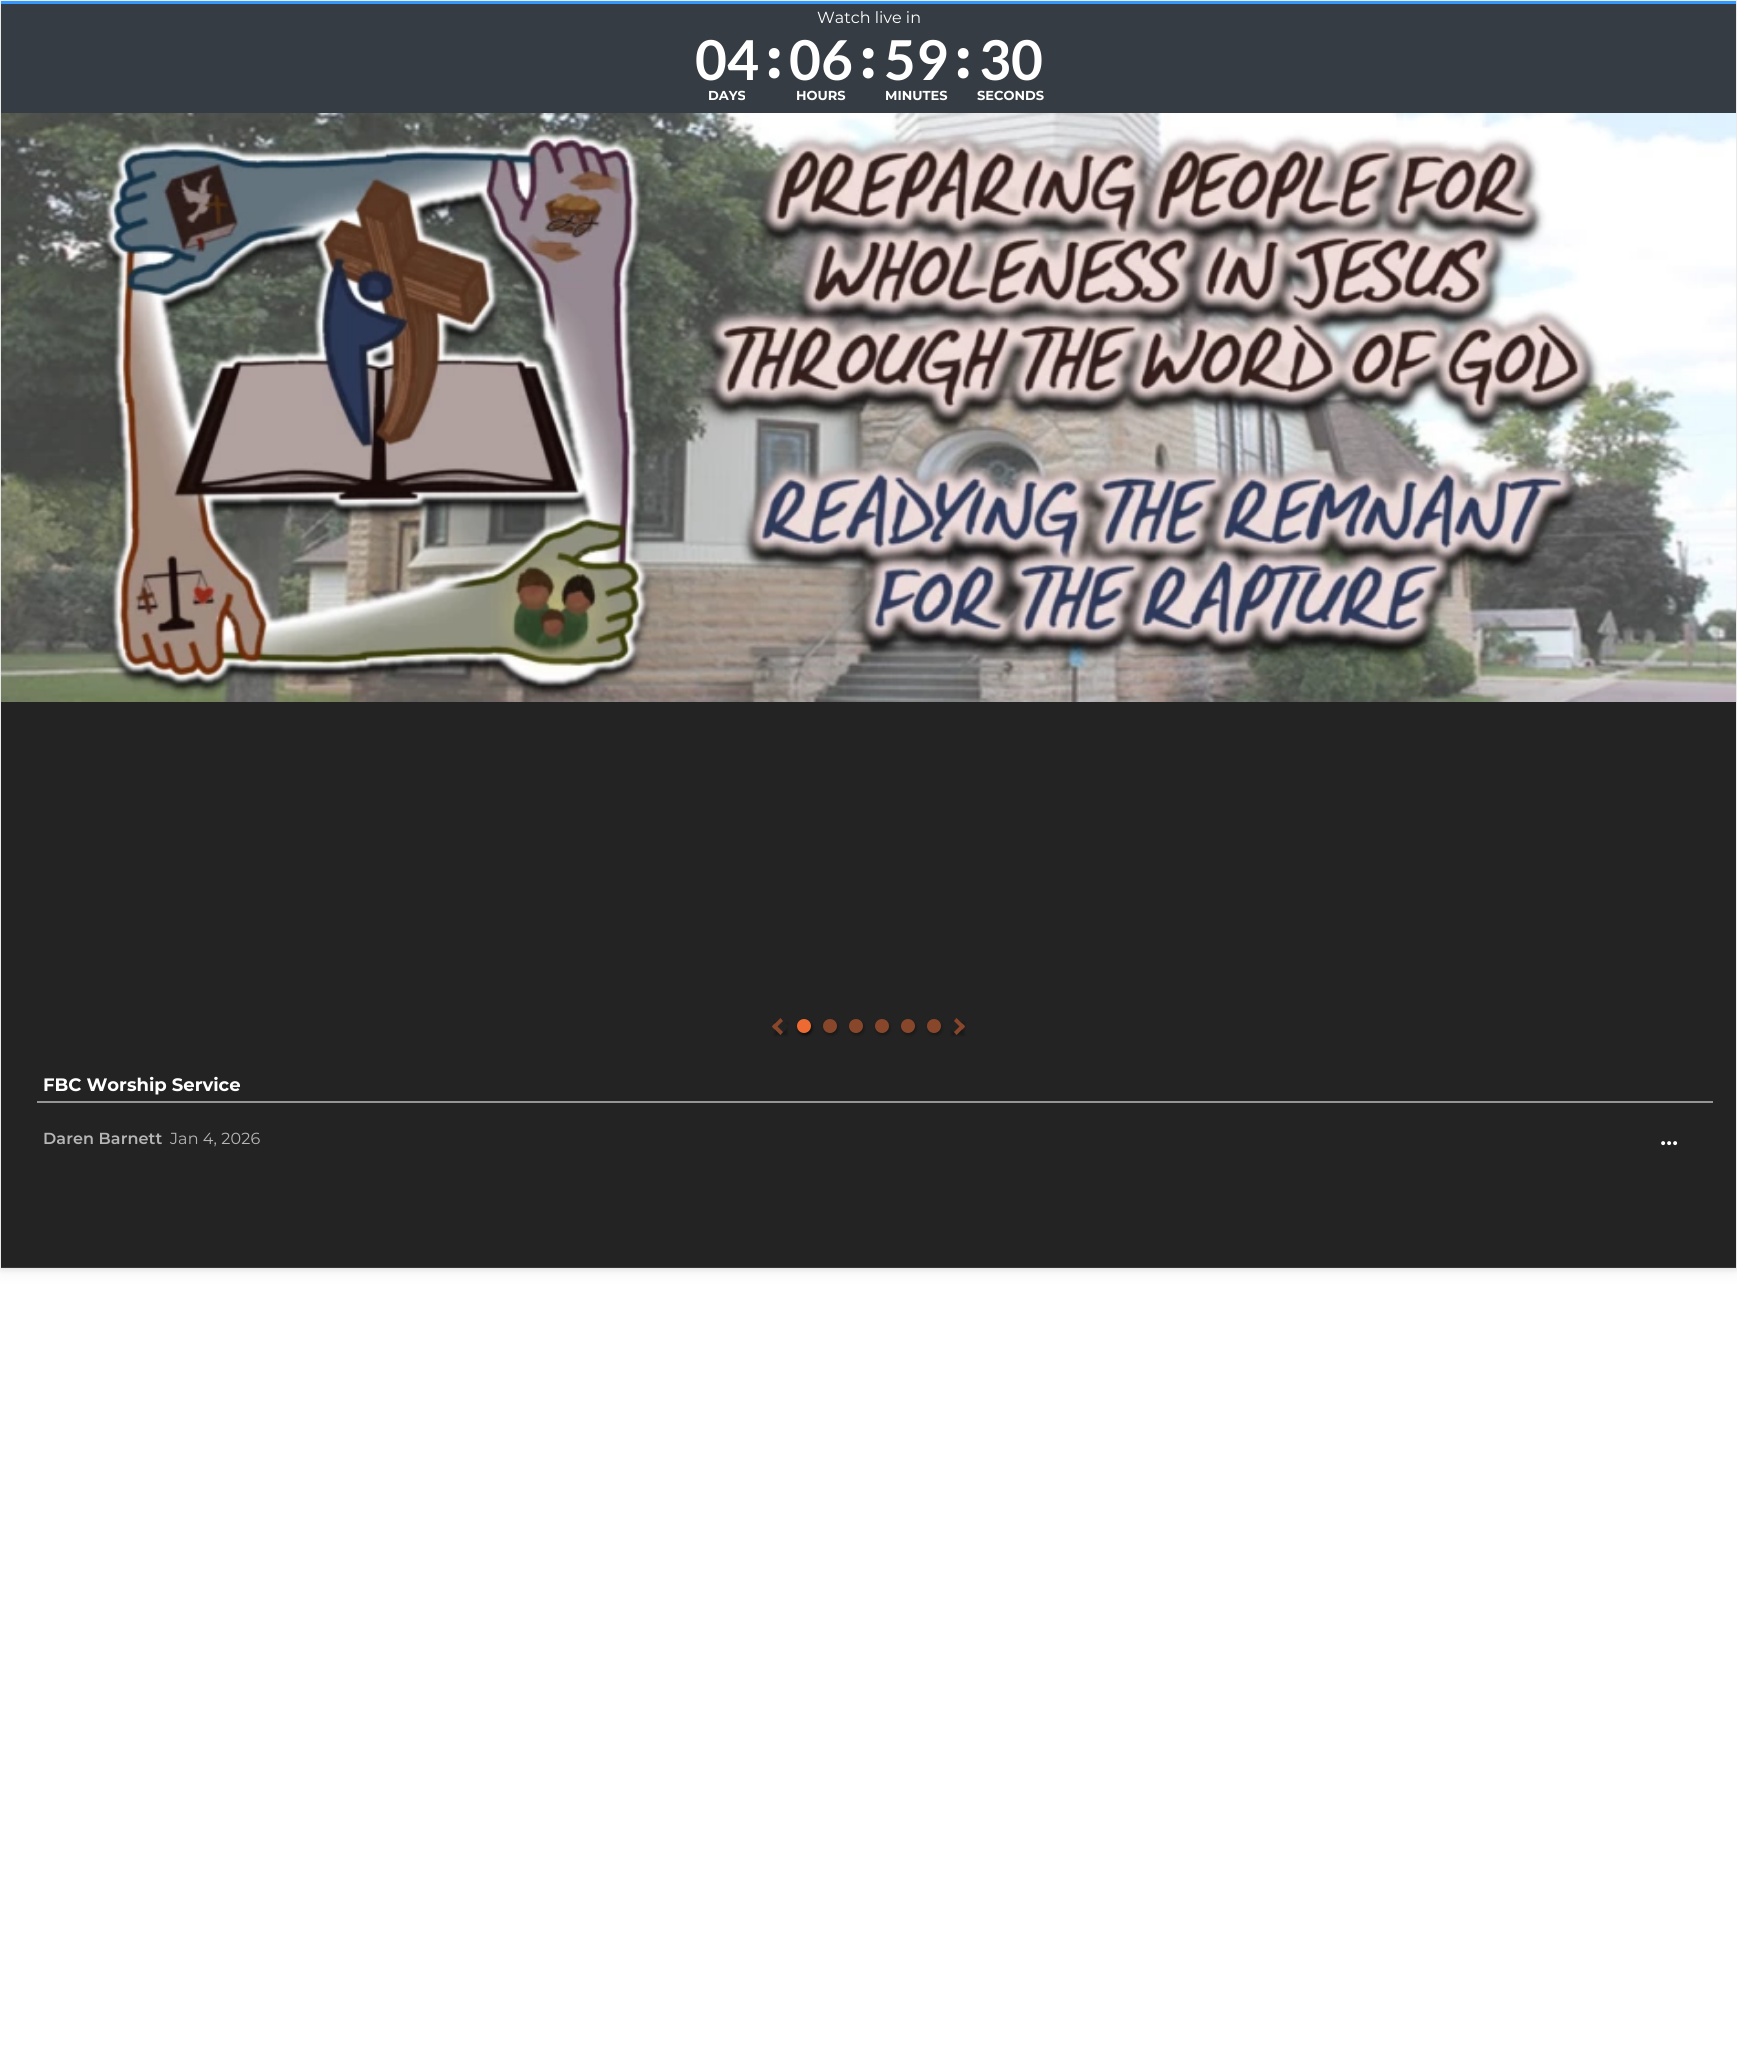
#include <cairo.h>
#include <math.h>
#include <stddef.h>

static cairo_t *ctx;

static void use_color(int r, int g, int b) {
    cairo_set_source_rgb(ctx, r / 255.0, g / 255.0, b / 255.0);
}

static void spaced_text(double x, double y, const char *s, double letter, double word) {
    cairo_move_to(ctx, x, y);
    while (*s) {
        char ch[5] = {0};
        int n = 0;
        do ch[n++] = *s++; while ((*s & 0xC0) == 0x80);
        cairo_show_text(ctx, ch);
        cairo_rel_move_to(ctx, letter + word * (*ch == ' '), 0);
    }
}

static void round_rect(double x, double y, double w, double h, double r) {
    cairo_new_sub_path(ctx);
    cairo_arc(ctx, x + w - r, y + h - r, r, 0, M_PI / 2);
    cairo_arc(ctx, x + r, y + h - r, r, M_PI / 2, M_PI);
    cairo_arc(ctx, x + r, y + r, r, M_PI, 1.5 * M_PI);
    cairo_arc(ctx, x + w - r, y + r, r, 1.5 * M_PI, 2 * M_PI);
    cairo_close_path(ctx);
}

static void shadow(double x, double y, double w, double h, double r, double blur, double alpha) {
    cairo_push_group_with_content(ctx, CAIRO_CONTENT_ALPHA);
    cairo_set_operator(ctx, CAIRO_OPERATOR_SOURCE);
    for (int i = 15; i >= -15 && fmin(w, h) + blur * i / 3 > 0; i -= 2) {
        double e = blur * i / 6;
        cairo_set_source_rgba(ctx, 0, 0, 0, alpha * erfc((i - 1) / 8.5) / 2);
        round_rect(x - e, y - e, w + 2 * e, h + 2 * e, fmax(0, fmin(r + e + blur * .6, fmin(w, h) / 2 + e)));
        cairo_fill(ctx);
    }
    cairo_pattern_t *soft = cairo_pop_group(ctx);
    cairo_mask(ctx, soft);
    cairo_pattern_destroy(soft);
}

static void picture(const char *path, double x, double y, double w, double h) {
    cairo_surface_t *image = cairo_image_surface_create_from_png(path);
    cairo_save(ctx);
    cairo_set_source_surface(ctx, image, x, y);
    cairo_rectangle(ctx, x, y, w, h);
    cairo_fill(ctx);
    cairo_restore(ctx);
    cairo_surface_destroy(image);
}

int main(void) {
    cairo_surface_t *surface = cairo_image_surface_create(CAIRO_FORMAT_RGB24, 1737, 2047);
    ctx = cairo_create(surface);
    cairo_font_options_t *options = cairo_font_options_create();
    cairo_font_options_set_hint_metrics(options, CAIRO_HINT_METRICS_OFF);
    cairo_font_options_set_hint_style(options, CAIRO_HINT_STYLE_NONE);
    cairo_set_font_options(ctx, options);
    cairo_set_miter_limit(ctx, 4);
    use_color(255, 255, 255);
    cairo_paint(ctx);
    use_color(242, 242, 243);
    shadow(0, 2, 1737, 1269, 0, 2, 1);
    cairo_rectangle(ctx, 0.5, 0.5, 1736, 1268);
    use_color(239, 239, 239);
    cairo_set_line_width(ctx, 1);
    cairo_stroke(ctx);
    use_color(0, 0, 0);
    shadow(1, 6, 1735, 1267, 0, 7.5, 0.05);
    use_color(35, 35, 35);
    cairo_rectangle(ctx, 1, 702, 1735, 565);
    cairo_fill(ctx);
    use_color(54, 54, 54);
    cairo_rectangle(ctx, 1, 1267, 1735, 1);
    cairo_fill(ctx);
    use_color(53, 60, 67);
    cairo_rectangle(ctx, 1, 4, 1735, 109);
    cairo_fill(ctx);
    use_color(51, 153, 255);
    cairo_rectangle(ctx, 1, 1, 1735, 3);
    cairo_fill(ctx);
    cairo_select_font_face(ctx, "Montserrat", CAIRO_FONT_SLANT_NORMAL, CAIRO_FONT_WEIGHT_NORMAL);
    cairo_set_font_size(ctx, 16);
    use_color(255, 255, 255);
    cairo_move_to(ctx, 817, 23);
    cairo_show_text(ctx, "Watch live in");
    cairo_select_font_face(ctx, "Lato", CAIRO_FONT_SLANT_NORMAL, CAIRO_FONT_WEIGHT_BOLD);
    cairo_set_font_size(ctx, 55);
    cairo_move_to(ctx, 695, 80);
    cairo_show_text(ctx, "04");
    cairo_select_font_face(ctx, "Montserrat", CAIRO_FONT_SLANT_NORMAL, CAIRO_FONT_WEIGHT_BOLD);
    cairo_set_font_size(ctx, 13);
    cairo_move_to(ctx, 708, 100);
    cairo_show_text(ctx, "DAYS");
    cairo_set_font_size(ctx, 55);
    cairo_move_to(ctx, 767, 78);
    cairo_show_text(ctx, ":");
    cairo_select_font_face(ctx, "Lato", CAIRO_FONT_SLANT_NORMAL, CAIRO_FONT_WEIGHT_BOLD);
    cairo_move_to(ctx, 789, 80);
    cairo_show_text(ctx, "06");
    cairo_select_font_face(ctx, "Montserrat", CAIRO_FONT_SLANT_NORMAL, CAIRO_FONT_WEIGHT_BOLD);
    cairo_set_font_size(ctx, 13);
    cairo_move_to(ctx, 796, 100);
    cairo_show_text(ctx, "HOURS");
    cairo_set_font_size(ctx, 55);
    cairo_move_to(ctx, 861, 78);
    cairo_show_text(ctx, ":");
    cairo_select_font_face(ctx, "Lato", CAIRO_FONT_SLANT_NORMAL, CAIRO_FONT_WEIGHT_BOLD);
    cairo_move_to(ctx, 884, 80);
    cairo_show_text(ctx, "59");
    cairo_select_font_face(ctx, "Montserrat", CAIRO_FONT_SLANT_NORMAL, CAIRO_FONT_WEIGHT_BOLD);
    cairo_set_font_size(ctx, 13);
    cairo_move_to(ctx, 885, 100);
    cairo_show_text(ctx, "MINUTES");
    cairo_set_font_size(ctx, 55);
    cairo_move_to(ctx, 956, 78);
    cairo_show_text(ctx, ":");
    cairo_select_font_face(ctx, "Lato", CAIRO_FONT_SLANT_NORMAL, CAIRO_FONT_WEIGHT_BOLD);
    cairo_move_to(ctx, 979, 80);
    cairo_show_text(ctx, "30");
    cairo_select_font_face(ctx, "Montserrat", CAIRO_FONT_SLANT_NORMAL, CAIRO_FONT_WEIGHT_BOLD);
    cairo_set_font_size(ctx, 13);
    cairo_move_to(ctx, 977, 100);
    cairo_show_text(ctx, "SECONDS");
    picture("img1.png", 1, 113, 1735, 589);
    cairo_save(ctx);
    cairo_set_fill_rule(ctx, CAIRO_FILL_RULE_EVEN_ODD);
    cairo_new_path(ctx);
    cairo_move_to(ctx, 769, 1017);
    cairo_line_to(ctx, 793, 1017);
    cairo_line_to(ctx, 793, 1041);
    cairo_line_to(ctx, 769, 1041);
    cairo_close_path(ctx);
    cairo_move_to(ctx, 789, 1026.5);
    cairo_line_to(ctx, 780.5, 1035);
    cairo_line_to(ctx, 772, 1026.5);
    cairo_line_to(ctx, 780.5, 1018);
    cairo_close_path(ctx);
    cairo_clip(ctx);
    use_color(18, 18, 18);
    shadow(775, 1023, 12, 12, 0, 1.5, 0.7);
    cairo_restore(ctx);
    use_color(136, 71, 43);
    cairo_new_path(ctx);
    cairo_move_to(ctx, 783, 1032);
    cairo_line_to(ctx, 780.5, 1035);
    cairo_line_to(ctx, 772, 1026.5);
    cairo_line_to(ctx, 774.5, 1023.5);
    cairo_close_path(ctx);
    cairo_fill(ctx);
    cairo_new_path(ctx);
    cairo_move_to(ctx, 783, 1021);
    cairo_line_to(ctx, 774.5, 1029.5);
    cairo_line_to(ctx, 772, 1026.5);
    cairo_line_to(ctx, 780.5, 1018);
    cairo_close_path(ctx);
    cairo_fill(ctx);
    use_color(0, 0, 0);
    shadow(798, 1021, 14, 14, 7, 1.5, 0.7);
    use_color(237, 106, 51);
    cairo_arc(ctx, 804, 1026, 7, 0, 2 * M_PI);
    cairo_fill(ctx);
    use_color(18, 18, 18);
    shadow(824, 1021, 14, 14, 7, 1.5, 0.7);
    use_color(136, 71, 43);
    cairo_arc(ctx, 830, 1026, 7, 0, 2 * M_PI);
    cairo_fill(ctx);
    use_color(18, 18, 18);
    shadow(850, 1021, 14, 14, 7, 1.5, 0.7);
    use_color(136, 71, 43);
    cairo_arc(ctx, 856, 1026, 7, 0, 2 * M_PI);
    cairo_fill(ctx);
    use_color(18, 18, 18);
    shadow(876, 1021, 14, 14, 7, 1.5, 0.7);
    use_color(136, 71, 43);
    cairo_arc(ctx, 882, 1026, 7, 0, 2 * M_PI);
    cairo_fill(ctx);
    use_color(18, 18, 18);
    shadow(902, 1021, 14, 14, 7, 1.5, 0.7);
    use_color(136, 71, 43);
    cairo_arc(ctx, 908, 1026, 7, 0, 2 * M_PI);
    cairo_fill(ctx);
    use_color(18, 18, 18);
    shadow(928, 1021, 14, 14, 7, 1.5, 0.7);
    use_color(136, 71, 43);
    cairo_arc(ctx, 934, 1026, 7, 0, 2 * M_PI);
    cairo_fill(ctx);
    cairo_save(ctx);
    cairo_set_fill_rule(ctx, CAIRO_FILL_RULE_EVEN_ODD);
    cairo_new_path(ctx);
    cairo_move_to(ctx, 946, 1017);
    cairo_line_to(ctx, 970, 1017);
    cairo_line_to(ctx, 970, 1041);
    cairo_line_to(ctx, 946, 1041);
    cairo_close_path(ctx);
    cairo_move_to(ctx, 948, 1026.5);
    cairo_line_to(ctx, 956.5, 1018);
    cairo_line_to(ctx, 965, 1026.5);
    cairo_line_to(ctx, 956.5, 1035);
    cairo_close_path(ctx);
    cairo_clip(ctx);
    use_color(18, 18, 18);
    shadow(952, 1023, 12, 12, 0, 1.5, 0.7);
    cairo_restore(ctx);
    cairo_new_path(ctx);
    cairo_move_to(ctx, 954, 1021);
    cairo_line_to(ctx, 956.5, 1018);
    cairo_line_to(ctx, 965, 1026.5);
    cairo_line_to(ctx, 962.5, 1029.5);
    cairo_close_path(ctx);
    cairo_fill(ctx);
    cairo_new_path(ctx);
    cairo_move_to(ctx, 954, 1032);
    cairo_line_to(ctx, 962.5, 1023.5);
    cairo_line_to(ctx, 965, 1026.5);
    cairo_line_to(ctx, 956.5, 1035);
    cairo_close_path(ctx);
    cairo_fill(ctx);
    cairo_set_font_size(ctx, 18);
    use_color(255, 255, 255);
    cairo_move_to(ctx, 43, 1091);
    cairo_show_text(ctx, "FBC Worship Service");
    use_color(149, 149, 149);
    cairo_rectangle(ctx, 37, 1101, 1676, 2);
    cairo_fill(ctx);
    cairo_select_font_face(ctx, "Montserrat SemiBold", CAIRO_FONT_SLANT_NORMAL, CAIRO_FONT_WEIGHT_NORMAL);
    cairo_set_font_size(ctx, 16);
    use_color(181, 181, 181);
    spaced_text(43, 1144, "Daren Barnett", 0.1, 0);
    cairo_select_font_face(ctx, "Montserrat", CAIRO_FONT_SLANT_NORMAL, CAIRO_FONT_WEIGHT_NORMAL);
    spaced_text(170, 1144, "Jan 4, 2026", 0.1, 0);
    picture("img2.png", 1661, 1141, 17, 5);
    cairo_surface_write_to_png(surface, "result.png");
    cairo_font_options_destroy(options);
    cairo_destroy(ctx);
    cairo_surface_destroy(surface);
    return 0;
}
